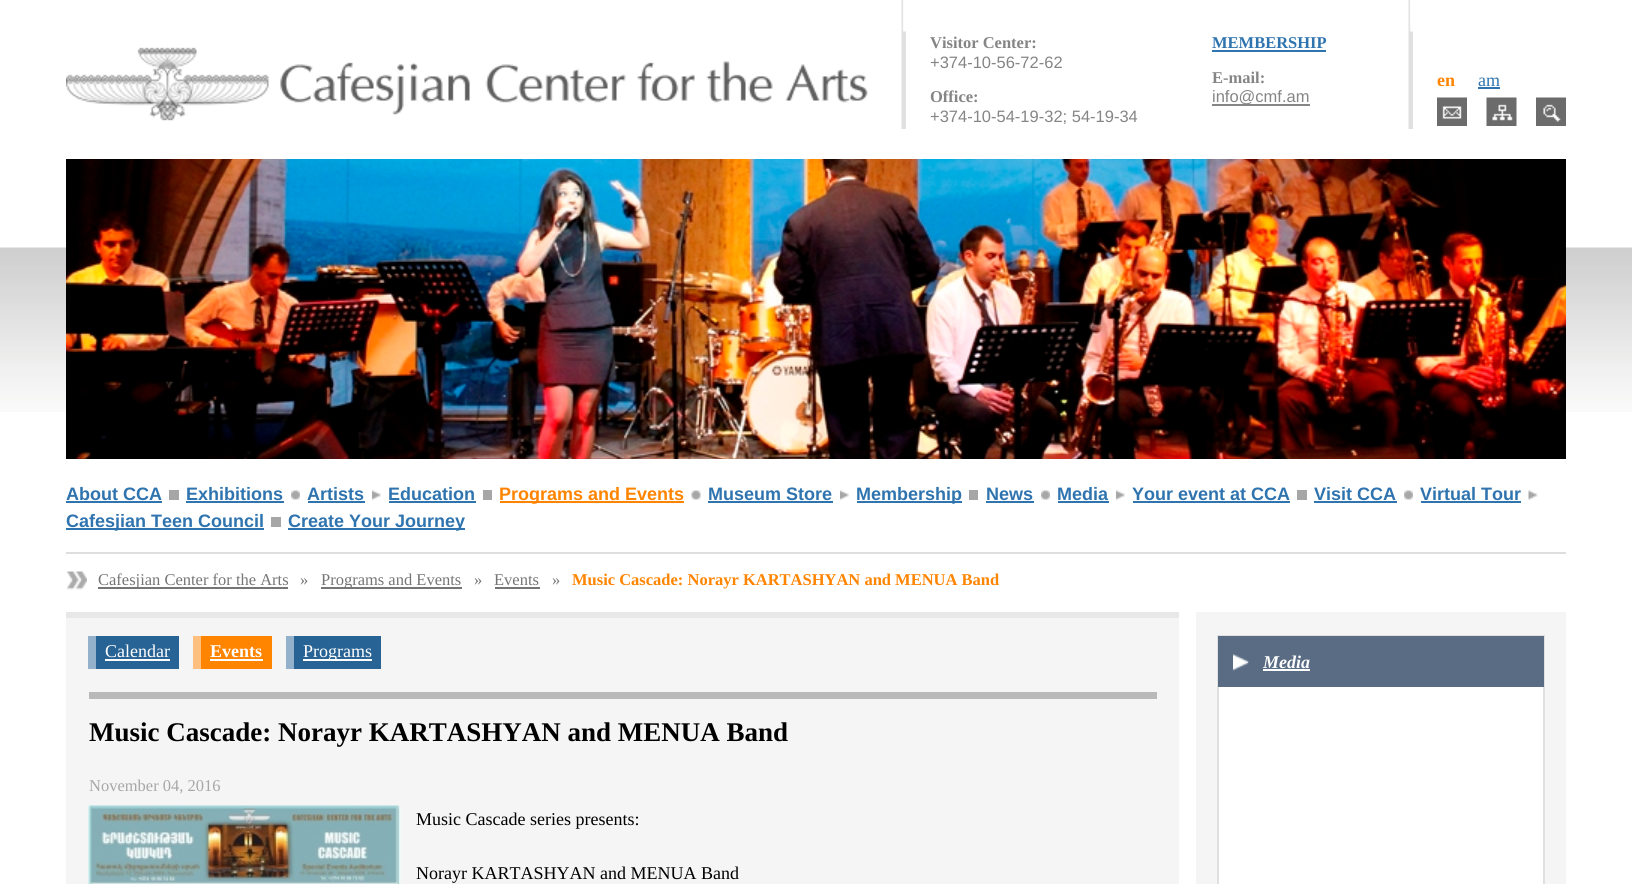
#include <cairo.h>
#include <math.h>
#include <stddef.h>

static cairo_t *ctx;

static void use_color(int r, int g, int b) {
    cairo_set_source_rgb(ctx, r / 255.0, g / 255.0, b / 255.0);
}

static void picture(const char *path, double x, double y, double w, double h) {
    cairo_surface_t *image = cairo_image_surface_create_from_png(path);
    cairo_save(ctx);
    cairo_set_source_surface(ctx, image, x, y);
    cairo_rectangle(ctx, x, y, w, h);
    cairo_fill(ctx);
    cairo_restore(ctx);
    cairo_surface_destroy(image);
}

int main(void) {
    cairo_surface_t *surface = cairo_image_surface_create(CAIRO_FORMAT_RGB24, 1632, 884);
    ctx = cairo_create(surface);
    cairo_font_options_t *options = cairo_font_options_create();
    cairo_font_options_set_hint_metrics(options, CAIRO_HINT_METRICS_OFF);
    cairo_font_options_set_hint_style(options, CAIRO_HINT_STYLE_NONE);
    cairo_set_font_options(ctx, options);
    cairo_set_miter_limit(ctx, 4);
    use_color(255, 255, 255);
    cairo_paint(ctx);
    picture("img1.png", 0, 247, 1632, 165);
    picture("img2.png", 901, 0, 5, 129);
    picture("img3.png", 66, 47, 802, 74);
    picture("img2.png", 1408, 0, 5, 129);
    cairo_select_font_face(ctx, "Liberation Serif", CAIRO_FONT_SLANT_NORMAL, CAIRO_FONT_WEIGHT_BOLD);
    cairo_set_font_size(ctx, 16.5);
    use_color(133, 133, 133);
    cairo_move_to(ctx, 930, 48);
    cairo_show_text(ctx, "Visitor Center:");
    cairo_select_font_face(ctx, "Liberation Sans", CAIRO_FONT_SLANT_NORMAL, CAIRO_FONT_WEIGHT_NORMAL);
    cairo_move_to(ctx, 930, 68);
    cairo_show_text(ctx, "+374-10-56-72-62");
    cairo_select_font_face(ctx, "Liberation Serif", CAIRO_FONT_SLANT_NORMAL, CAIRO_FONT_WEIGHT_BOLD);
    cairo_move_to(ctx, 930, 102);
    cairo_show_text(ctx, "Office:");
    cairo_select_font_face(ctx, "Liberation Sans", CAIRO_FONT_SLANT_NORMAL, CAIRO_FONT_WEIGHT_NORMAL);
    cairo_move_to(ctx, 930, 122);
    cairo_show_text(ctx, "+374-10-54-19-32; 54-19-34");
    cairo_select_font_face(ctx, "Liberation Serif", CAIRO_FONT_SLANT_NORMAL, CAIRO_FONT_WEIGHT_BOLD);
    use_color(47, 116, 175);
    cairo_move_to(ctx, 1212, 48);
    cairo_show_text(ctx, "MEMBERSHIP");
    cairo_rectangle(ctx, 1212, 50, 114, 2);
    cairo_fill(ctx);
    use_color(133, 133, 133);
    cairo_move_to(ctx, 1212, 83);
    cairo_show_text(ctx, "E-mail:");
    cairo_rectangle(ctx, 1212, 104, 98, 2);
    cairo_fill(ctx);
    cairo_select_font_face(ctx, "Liberation Sans", CAIRO_FONT_SLANT_NORMAL, CAIRO_FONT_WEIGHT_NORMAL);
    cairo_move_to(ctx, 1212, 102);
    cairo_show_text(ctx, "info@cmf.am");
    cairo_select_font_face(ctx, "Liberation Serif", CAIRO_FONT_SLANT_NORMAL, CAIRO_FONT_WEIGHT_BOLD);
    cairo_set_font_size(ctx, 18);
    use_color(255, 132, 0);
    cairo_move_to(ctx, 1437, 86);
    cairo_show_text(ctx, "en");
    cairo_select_font_face(ctx, "Liberation Serif", CAIRO_FONT_SLANT_NORMAL, CAIRO_FONT_WEIGHT_NORMAL);
    use_color(47, 116, 175);
    cairo_move_to(ctx, 1478, 86);
    cairo_show_text(ctx, "am");
    cairo_rectangle(ctx, 1478, 87, 22, 2);
    cairo_fill(ctx);
    picture("img4.png", 1437, 97, 30, 29);
    picture("img5.png", 1486, 97, 31, 29);
    picture("img6.png", 1536, 97, 30, 29);
    picture("img7.png", 66, 159, 1500, 300);
    cairo_select_font_face(ctx, "Liberation Sans", CAIRO_FONT_SLANT_NORMAL, CAIRO_FONT_WEIGHT_BOLD);
    cairo_move_to(ctx, 66, 500);
    cairo_show_text(ctx, "About CCA");
    cairo_rectangle(ctx, 66, 501, 96, 2);
    cairo_fill(ctx);
    use_color(166, 166, 166);
    cairo_rectangle(ctx, 169, 490, 10, 10);
    cairo_fill(ctx);
    use_color(47, 116, 175);
    cairo_move_to(ctx, 186, 500);
    cairo_show_text(ctx, "Exhibitions");
    cairo_rectangle(ctx, 186, 501, 98, 2);
    cairo_fill(ctx);
    picture("img8.png", 291, 490, 9, 10);
    cairo_move_to(ctx, 307, 500);
    cairo_show_text(ctx, "Artists");
    cairo_rectangle(ctx, 308, 501, 57, 2);
    cairo_fill(ctx);
    picture("img9.png", 372, 490, 9, 10);
    cairo_move_to(ctx, 388, 500);
    cairo_show_text(ctx, "Education");
    cairo_rectangle(ctx, 389, 501, 87, 2);
    cairo_fill(ctx);
    use_color(166, 166, 166);
    cairo_rectangle(ctx, 483, 490, 9, 10);
    cairo_fill(ctx);
    use_color(255, 132, 0);
    cairo_rectangle(ctx, 500, 501, 184, 2);
    cairo_fill(ctx);
    cairo_move_to(ctx, 499, 500);
    cairo_show_text(ctx, "Programs and Events");
    picture("img10.png", 691, 490, 10, 10);
    use_color(47, 116, 175);
    cairo_move_to(ctx, 708, 500);
    cairo_show_text(ctx, "Museum Store");
    cairo_rectangle(ctx, 708, 501, 125, 2);
    cairo_fill(ctx);
    picture("img11.png", 840, 490, 9, 10);
    cairo_rectangle(ctx, 857, 501, 105, 2);
    cairo_fill(ctx);
    cairo_move_to(ctx, 856, 500);
    cairo_show_text(ctx, "Membership");
    use_color(166, 166, 166);
    cairo_rectangle(ctx, 969, 490, 9, 10);
    cairo_fill(ctx);
    use_color(47, 116, 175);
    cairo_move_to(ctx, 986, 500);
    cairo_show_text(ctx, "News");
    cairo_rectangle(ctx, 986, 501, 48, 2);
    cairo_fill(ctx);
    picture("img8.png", 1041, 490, 9, 10);
    cairo_move_to(ctx, 1057, 500);
    cairo_show_text(ctx, "Media");
    cairo_rectangle(ctx, 1058, 501, 51, 2);
    cairo_fill(ctx);
    picture("img9.png", 1116, 490, 9, 10);
    cairo_move_to(ctx, 1132, 500);
    cairo_show_text(ctx, "Your event at CCA");
    cairo_rectangle(ctx, 1133, 501, 157, 2);
    cairo_fill(ctx);
    use_color(166, 166, 166);
    cairo_rectangle(ctx, 1297, 490, 10, 10);
    cairo_fill(ctx);
    use_color(47, 116, 175);
    cairo_move_to(ctx, 1314, 500);
    cairo_show_text(ctx, "Visit CCA");
    cairo_rectangle(ctx, 1314, 501, 83, 2);
    cairo_fill(ctx);
    picture("img12.png", 1404, 490, 9, 10);
    cairo_move_to(ctx, 1420, 500);
    cairo_show_text(ctx, "Virtual Tour");
    cairo_rectangle(ctx, 1421, 501, 100, 2);
    cairo_fill(ctx);
    picture("img13.png", 1528, 490, 10, 10);
    cairo_rectangle(ctx, 66, 528, 198, 2);
    cairo_fill(ctx);
    cairo_move_to(ctx, 66, 527);
    cairo_show_text(ctx, "Cafesjian Teen Council");
    use_color(166, 166, 166);
    cairo_rectangle(ctx, 271, 517, 10, 10);
    cairo_fill(ctx);
    use_color(47, 116, 175);
    cairo_rectangle(ctx, 288, 528, 177, 2);
    cairo_fill(ctx);
    cairo_move_to(ctx, 288, 527);
    cairo_show_text(ctx, "Create Your Journey");
    use_color(222, 222, 222);
    cairo_rectangle(ctx, 66, 552, 1500, 2);
    cairo_fill(ctx);
    picture("img14.png", 66, 571, 21, 19);
    use_color(117, 117, 117);
    cairo_rectangle(ctx, 98, 587, 190, 2);
    cairo_fill(ctx);
    cairo_select_font_face(ctx, "Liberation Serif", CAIRO_FONT_SLANT_NORMAL, CAIRO_FONT_WEIGHT_NORMAL);
    cairo_set_font_size(ctx, 16.5);
    cairo_move_to(ctx, 98, 585);
    cairo_show_text(ctx, "Cafesjian Center for the Arts");
    cairo_move_to(ctx, 300, 585);
    cairo_show_text(ctx, "»");
    cairo_rectangle(ctx, 321, 587, 141, 2);
    cairo_fill(ctx);
    cairo_move_to(ctx, 321, 585);
    cairo_show_text(ctx, "Programs and Events");
    cairo_move_to(ctx, 474, 585);
    cairo_show_text(ctx, "»");
    cairo_move_to(ctx, 494, 585);
    cairo_show_text(ctx, "Events");
    cairo_rectangle(ctx, 495, 587, 45, 2);
    cairo_fill(ctx);
    cairo_move_to(ctx, 552, 585);
    cairo_show_text(ctx, "»");
    cairo_select_font_face(ctx, "Liberation Serif", CAIRO_FONT_SLANT_NORMAL, CAIRO_FONT_WEIGHT_BOLD);
    use_color(255, 132, 0);
    cairo_move_to(ctx, 572, 585);
    cairo_show_text(ctx, "Music Cascade: Norayr KARTASHYAN and MENUA Band");
    use_color(246, 245, 246);
    cairo_rectangle(ctx, 66, 618, 1113, 266);
    cairo_fill(ctx);
    use_color(232, 232, 232);
    cairo_rectangle(ctx, 66, 612, 1113, 6);
    cairo_fill(ctx);
    use_color(40, 99, 149);
    cairo_rectangle(ctx, 96, 636, 83, 33);
    cairo_fill(ctx);
    use_color(147, 177, 202);
    cairo_rectangle(ctx, 88, 636, 8, 33);
    cairo_fill(ctx);
    cairo_select_font_face(ctx, "Liberation Serif", CAIRO_FONT_SLANT_NORMAL, CAIRO_FONT_WEIGHT_NORMAL);
    cairo_set_font_size(ctx, 18);
    use_color(255, 255, 255);
    cairo_move_to(ctx, 105, 657);
    cairo_show_text(ctx, "Calendar");
    cairo_rectangle(ctx, 105, 659, 65, 2);
    cairo_fill(ctx);
    use_color(255, 132, 0);
    cairo_rectangle(ctx, 201, 636, 71, 33);
    cairo_fill(ctx);
    use_color(255, 192, 127);
    cairo_rectangle(ctx, 193, 636, 8, 33);
    cairo_fill(ctx);
    cairo_select_font_face(ctx, "Liberation Serif", CAIRO_FONT_SLANT_NORMAL, CAIRO_FONT_WEIGHT_BOLD);
    use_color(255, 255, 255);
    cairo_move_to(ctx, 210, 657);
    cairo_show_text(ctx, "Events");
    cairo_rectangle(ctx, 210, 659, 53, 2);
    cairo_fill(ctx);
    use_color(40, 99, 149);
    cairo_rectangle(ctx, 294, 636, 87, 33);
    cairo_fill(ctx);
    use_color(147, 177, 202);
    cairo_rectangle(ctx, 286, 636, 8, 33);
    cairo_fill(ctx);
    use_color(255, 255, 255);
    cairo_rectangle(ctx, 303, 659, 69, 2);
    cairo_fill(ctx);
    cairo_select_font_face(ctx, "Liberation Serif", CAIRO_FONT_SLANT_NORMAL, CAIRO_FONT_WEIGHT_NORMAL);
    cairo_move_to(ctx, 303, 657);
    cairo_show_text(ctx, "Programs");
    use_color(185, 185, 185);
    cairo_rectangle(ctx, 89, 692, 1068, 7);
    cairo_fill(ctx);
    cairo_select_font_face(ctx, "Liberation Serif", CAIRO_FONT_SLANT_NORMAL, CAIRO_FONT_WEIGHT_BOLD);
    cairo_set_font_size(ctx, 27);
    use_color(0, 0, 0);
    cairo_move_to(ctx, 89, 741);
    cairo_show_text(ctx, "Music Cascade: Norayr KARTASHYAN and MENUA Band");
    cairo_select_font_face(ctx, "Liberation Serif", CAIRO_FONT_SLANT_NORMAL, CAIRO_FONT_WEIGHT_NORMAL);
    cairo_set_font_size(ctx, 16.5);
    use_color(167, 167, 167);
    cairo_move_to(ctx, 89, 791);
    cairo_show_text(ctx, "November 04, 2016");
    picture("img15.png", 88, 805, 313, 79);
    cairo_set_font_size(ctx, 18);
    use_color(0, 0, 0);
    cairo_move_to(ctx, 416, 825);
    cairo_show_text(ctx, "Music Cascade series presents:");
    cairo_move_to(ctx, 416, 879);
    cairo_show_text(ctx, "Norayr KARTASHYAN and MENUA Band");
    use_color(246, 245, 246);
    cairo_rectangle(ctx, 1196, 612, 370, 272);
    cairo_fill(ctx);
    use_color(255, 255, 255);
    cairo_rectangle(ctx, 1219, 687, 324, 197);
    cairo_fill(ctx);
    cairo_rectangle(ctx, 1218, 636, 326, 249);
    use_color(224, 224, 224);
    cairo_stroke(ctx);
    use_color(89, 108, 132);
    cairo_rectangle(ctx, 1218, 636, 326, 51);
    cairo_fill(ctx);
    picture("img16.png", 1233, 654, 16, 17);
    cairo_select_font_face(ctx, "Liberation Serif", CAIRO_FONT_SLANT_ITALIC, CAIRO_FONT_WEIGHT_BOLD);
    use_color(255, 255, 255);
    cairo_move_to(ctx, 1263, 668);
    cairo_show_text(ctx, "Media");
    cairo_rectangle(ctx, 1263, 669, 47, 2);
    cairo_fill(ctx);
    cairo_surface_write_to_png(surface, "result.png");
    cairo_font_options_destroy(options);
    cairo_destroy(ctx);
    cairo_surface_destroy(surface);
    return 0;
}
